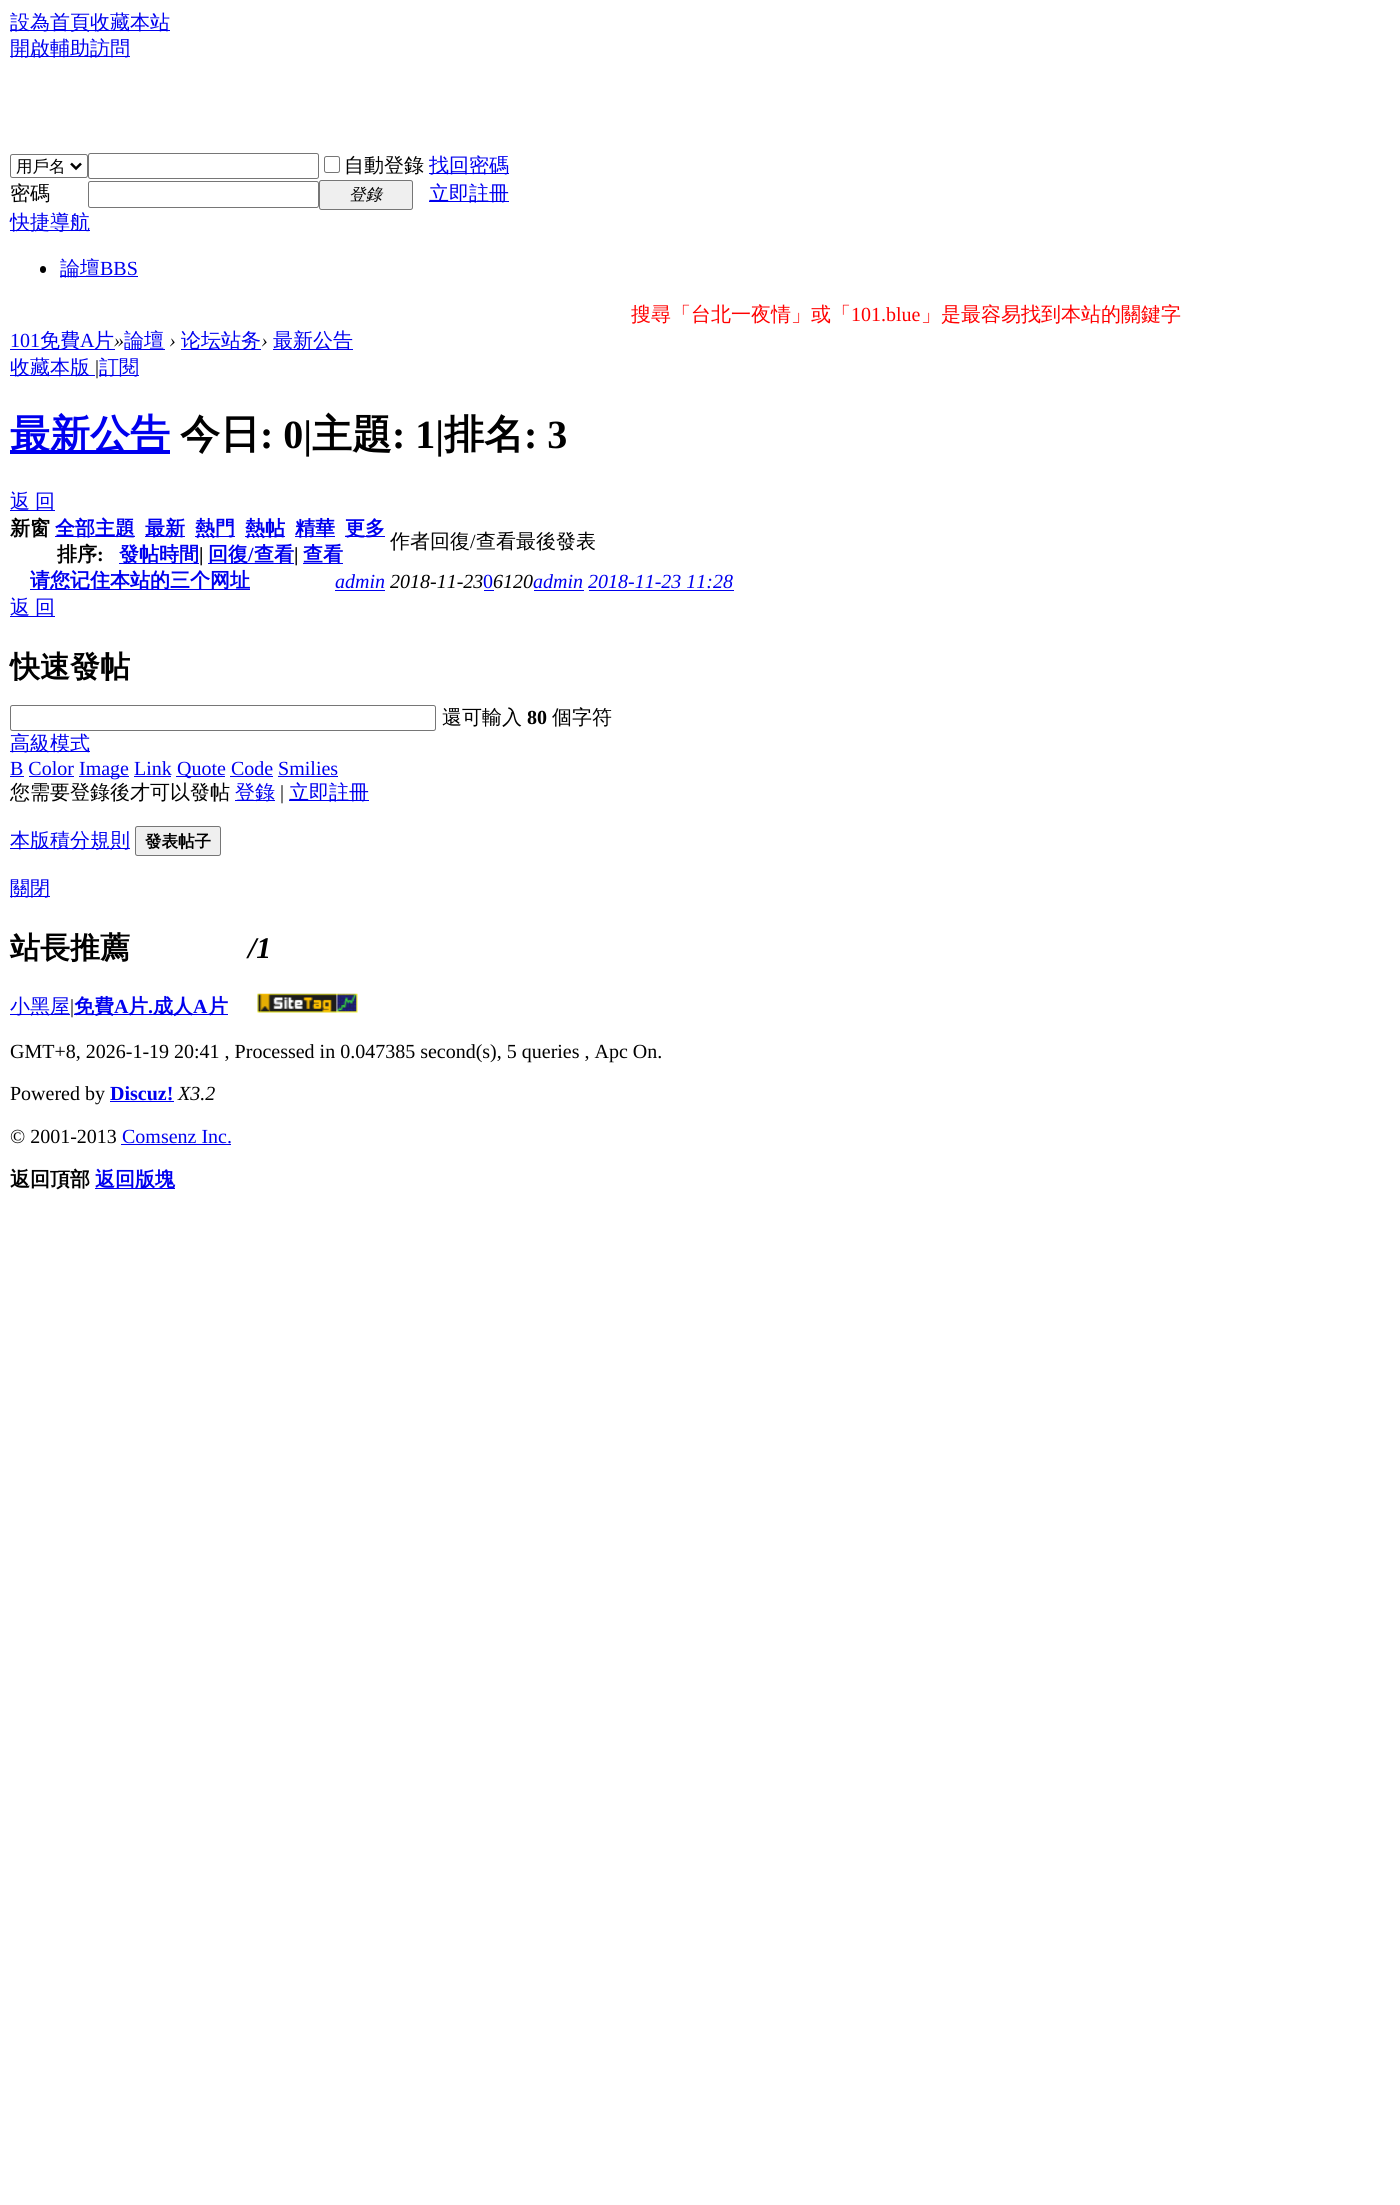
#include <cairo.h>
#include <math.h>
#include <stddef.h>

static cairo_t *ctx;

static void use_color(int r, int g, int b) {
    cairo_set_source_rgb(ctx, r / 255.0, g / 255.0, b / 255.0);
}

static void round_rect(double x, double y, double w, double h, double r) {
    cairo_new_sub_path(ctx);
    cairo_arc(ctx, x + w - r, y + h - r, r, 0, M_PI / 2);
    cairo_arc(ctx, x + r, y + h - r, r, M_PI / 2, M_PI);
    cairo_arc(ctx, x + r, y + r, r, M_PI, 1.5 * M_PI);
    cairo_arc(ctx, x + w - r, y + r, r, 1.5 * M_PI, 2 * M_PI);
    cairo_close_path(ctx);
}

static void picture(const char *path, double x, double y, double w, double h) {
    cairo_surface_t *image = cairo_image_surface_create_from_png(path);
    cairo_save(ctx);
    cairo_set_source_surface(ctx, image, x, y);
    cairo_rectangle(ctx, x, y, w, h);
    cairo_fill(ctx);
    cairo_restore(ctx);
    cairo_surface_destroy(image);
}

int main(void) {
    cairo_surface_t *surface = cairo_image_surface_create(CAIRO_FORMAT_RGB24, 1400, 2205);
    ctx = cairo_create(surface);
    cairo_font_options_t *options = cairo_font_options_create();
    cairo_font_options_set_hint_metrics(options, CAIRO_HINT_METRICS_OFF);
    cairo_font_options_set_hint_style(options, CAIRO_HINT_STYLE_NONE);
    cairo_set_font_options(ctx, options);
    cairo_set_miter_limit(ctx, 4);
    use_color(255, 255, 255);
    cairo_paint(ctx);
    use_color(0, 0, 238);
    cairo_rectangle(ctx, 10, 30, 160, 1);
    cairo_fill(ctx);
    cairo_select_font_face(ctx, "WenQuanYi Zen Hei Medium", CAIRO_FONT_SLANT_NORMAL, CAIRO_FONT_WEIGHT_NORMAL);
    cairo_set_font_size(ctx, 20);
    cairo_move_to(ctx, 10, 29);
    cairo_show_text(ctx, "設為首頁收藏本站");
    cairo_rectangle(ctx, 10, 56, 120, 1);
    cairo_fill(ctx);
    cairo_move_to(ctx, 10, 55);
    cairo_show_text(ctx, "開啟輔助訪問");
    round_rect(10.5, 154.5, 77, 23, 2);
    use_color(118, 118, 118);
    cairo_set_line_width(ctx, 1);
    cairo_stroke(ctx);
    cairo_new_path(ctx);
    cairo_move_to(ctx, 71, 163.5);
    cairo_line_to(ctx, 76, 168.5);
    cairo_line_to(ctx, 81, 163.5);
    use_color(0, 0, 0);
    cairo_set_line_width(ctx, 2.5);
    cairo_stroke(ctx);
    cairo_set_font_size(ctx, 16.5);
    cairo_move_to(ctx, 16, 172);
    cairo_show_text(ctx, "用戶名");
    round_rect(88.5, 153.5, 230, 25, 2);
    use_color(118, 118, 118);
    cairo_set_line_width(ctx, 1);
    cairo_stroke(ctx);
    round_rect(324.5, 156.5, 15, 16, 2);
    cairo_stroke(ctx);
    cairo_set_font_size(ctx, 20);
    use_color(0, 0, 0);
    cairo_move_to(ctx, 344, 172);
    cairo_show_text(ctx, "自動登錄");
    use_color(0, 0, 238);
    cairo_rectangle(ctx, 429, 173, 80, 1);
    cairo_fill(ctx);
    cairo_move_to(ctx, 429, 172);
    cairo_show_text(ctx, "找回密碼");
    use_color(0, 0, 0);
    cairo_move_to(ctx, 10, 200);
    cairo_show_text(ctx, "密碼");
    round_rect(88.5, 181.5, 230, 26, 2);
    use_color(118, 118, 118);
    cairo_stroke(ctx);
    use_color(239, 239, 239);
    round_rect(319.5, 180.5, 93, 29, 2);
    cairo_fill_preserve(ctx);
    use_color(118, 118, 118);
    cairo_stroke(ctx);
    cairo_select_font_face(ctx, "WenQuanYi Zen Hei Medium", CAIRO_FONT_SLANT_ITALIC, CAIRO_FONT_WEIGHT_NORMAL);
    cairo_set_font_size(ctx, 16.5);
    use_color(0, 0, 0);
    cairo_move_to(ctx, 349, 200);
    cairo_show_text(ctx, "登錄");
    use_color(0, 0, 238);
    cairo_rectangle(ctx, 429, 201, 80, 1);
    cairo_fill(ctx);
    cairo_select_font_face(ctx, "WenQuanYi Zen Hei Medium", CAIRO_FONT_SLANT_NORMAL, CAIRO_FONT_WEIGHT_NORMAL);
    cairo_set_font_size(ctx, 20);
    cairo_move_to(ctx, 429, 200);
    cairo_show_text(ctx, "立即註冊");
    cairo_rectangle(ctx, 10, 230, 80, 1);
    cairo_fill(ctx);
    cairo_move_to(ctx, 10, 229);
    cairo_show_text(ctx, "快捷導航");
    use_color(0, 0, 0);
    round_rect(40, 266, 6, 7, 3);
    cairo_fill(ctx);
    use_color(0, 0, 238);
    cairo_rectangle(ctx, 60, 276, 78, 1);
    cairo_fill(ctx);
    cairo_move_to(ctx, 60, 275);
    cairo_show_text(ctx, "論壇");
    cairo_select_font_face(ctx, "Liberation Serif", CAIRO_FONT_SLANT_NORMAL, CAIRO_FONT_WEIGHT_NORMAL);
    cairo_move_to(ctx, 100, 275);
    cairo_show_text(ctx, "BBS");
    cairo_select_font_face(ctx, "WenQuanYi Zen Hei Medium", CAIRO_FONT_SLANT_NORMAL, CAIRO_FONT_WEIGHT_NORMAL);
    use_color(255, 0, 0);
    cairo_move_to(ctx, 631, 321);
    cairo_show_text(ctx, "搜尋「台北一夜情」或「");
    cairo_select_font_face(ctx, "Liberation Serif", CAIRO_FONT_SLANT_NORMAL, CAIRO_FONT_WEIGHT_NORMAL);
    cairo_move_to(ctx, 851, 321);
    cairo_show_text(ctx, "101.blue");
    cairo_select_font_face(ctx, "WenQuanYi Zen Hei Medium", CAIRO_FONT_SLANT_NORMAL, CAIRO_FONT_WEIGHT_NORMAL);
    cairo_move_to(ctx, 921, 321);
    cairo_show_text(ctx, "」是最容易找到本站的關鍵字");
    cairo_select_font_face(ctx, "Liberation Serif", CAIRO_FONT_SLANT_NORMAL, CAIRO_FONT_WEIGHT_NORMAL);
    use_color(0, 0, 238);
    cairo_move_to(ctx, 10, 347);
    cairo_show_text(ctx, "101");
    cairo_rectangle(ctx, 10, 349, 105, 1);
    cairo_fill(ctx);
    cairo_select_font_face(ctx, "WenQuanYi Zen Hei Medium", CAIRO_FONT_SLANT_NORMAL, CAIRO_FONT_WEIGHT_NORMAL);
    cairo_move_to(ctx, 40, 347);
    cairo_show_text(ctx, "免費");
    cairo_select_font_face(ctx, "Liberation Serif", CAIRO_FONT_SLANT_NORMAL, CAIRO_FONT_WEIGHT_NORMAL);
    cairo_move_to(ctx, 80, 347);
    cairo_show_text(ctx, "A");
    cairo_select_font_face(ctx, "WenQuanYi Zen Hei Medium", CAIRO_FONT_SLANT_NORMAL, CAIRO_FONT_WEIGHT_NORMAL);
    cairo_move_to(ctx, 94, 347);
    cairo_show_text(ctx, "片");
    cairo_select_font_face(ctx, "Liberation Serif", CAIRO_FONT_SLANT_ITALIC, CAIRO_FONT_WEIGHT_NORMAL);
    use_color(0, 0, 0);
    cairo_move_to(ctx, 114, 347);
    cairo_show_text(ctx, "»");
    use_color(0, 0, 238);
    cairo_rectangle(ctx, 125, 349, 40, 1);
    cairo_fill(ctx);
    cairo_select_font_face(ctx, "WenQuanYi Zen Hei Medium", CAIRO_FONT_SLANT_NORMAL, CAIRO_FONT_WEIGHT_NORMAL);
    cairo_move_to(ctx, 124, 347);
    cairo_show_text(ctx, "論壇");
    cairo_select_font_face(ctx, "Liberation Serif", CAIRO_FONT_SLANT_ITALIC, CAIRO_FONT_WEIGHT_NORMAL);
    use_color(0, 0, 0);
    cairo_move_to(ctx, 169, 347);
    cairo_show_text(ctx, "›");
    use_color(0, 0, 238);
    cairo_rectangle(ctx, 181, 349, 80, 1);
    cairo_fill(ctx);
    cairo_select_font_face(ctx, "WenQuanYi Zen Hei Medium", CAIRO_FONT_SLANT_NORMAL, CAIRO_FONT_WEIGHT_NORMAL);
    cairo_move_to(ctx, 181, 347);
    cairo_show_text(ctx, "论坛站务");
    cairo_select_font_face(ctx, "Liberation Serif", CAIRO_FONT_SLANT_ITALIC, CAIRO_FONT_WEIGHT_NORMAL);
    use_color(0, 0, 0);
    cairo_move_to(ctx, 261, 347);
    cairo_show_text(ctx, "›");
    use_color(0, 0, 238);
    cairo_rectangle(ctx, 273, 349, 80, 1);
    cairo_fill(ctx);
    cairo_select_font_face(ctx, "WenQuanYi Zen Hei Medium", CAIRO_FONT_SLANT_NORMAL, CAIRO_FONT_WEIGHT_NORMAL);
    cairo_move_to(ctx, 273, 347);
    cairo_show_text(ctx, "最新公告");
    cairo_rectangle(ctx, 10, 375, 85, 1);
    cairo_fill(ctx);
    cairo_move_to(ctx, 10, 374);
    cairo_show_text(ctx, "收藏本版");
    cairo_select_font_face(ctx, "Liberation Serif", CAIRO_FONT_SLANT_NORMAL, CAIRO_FONT_WEIGHT_NORMAL);
    use_color(0, 0, 0);
    cairo_move_to(ctx, 95, 374);
    cairo_show_text(ctx, "|");
    use_color(0, 0, 238);
    cairo_rectangle(ctx, 99, 375, 40, 1);
    cairo_fill(ctx);
    cairo_select_font_face(ctx, "WenQuanYi Zen Hei Medium", CAIRO_FONT_SLANT_NORMAL, CAIRO_FONT_WEIGHT_NORMAL);
    cairo_move_to(ctx, 99, 374);
    cairo_show_text(ctx, "訂閱");
    cairo_rectangle(ctx, 10, 450, 160, 4);
    cairo_fill(ctx);
    cairo_select_font_face(ctx, "WenQuanYi Zen Hei", CAIRO_FONT_SLANT_NORMAL, CAIRO_FONT_WEIGHT_BOLD);
    cairo_set_font_size(ctx, 40);
    cairo_move_to(ctx, 10, 448);
    cairo_show_text(ctx, "最新公告");
    use_color(0, 0, 0);
    cairo_move_to(ctx, 180, 448);
    cairo_show_text(ctx, "今日");
    cairo_select_font_face(ctx, "Liberation Serif", CAIRO_FONT_SLANT_NORMAL, CAIRO_FONT_WEIGHT_BOLD);
    cairo_move_to(ctx, 260, 448);
    cairo_show_text(ctx, ": 0|");
    cairo_select_font_face(ctx, "WenQuanYi Zen Hei", CAIRO_FONT_SLANT_NORMAL, CAIRO_FONT_WEIGHT_BOLD);
    cairo_move_to(ctx, 312, 448);
    cairo_show_text(ctx, "主題");
    cairo_select_font_face(ctx, "Liberation Serif", CAIRO_FONT_SLANT_NORMAL, CAIRO_FONT_WEIGHT_BOLD);
    cairo_move_to(ctx, 392, 448);
    cairo_show_text(ctx, ": 1|");
    cairo_select_font_face(ctx, "WenQuanYi Zen Hei", CAIRO_FONT_SLANT_NORMAL, CAIRO_FONT_WEIGHT_BOLD);
    cairo_move_to(ctx, 444, 448);
    cairo_show_text(ctx, "排名");
    cairo_select_font_face(ctx, "Liberation Serif", CAIRO_FONT_SLANT_NORMAL, CAIRO_FONT_WEIGHT_BOLD);
    cairo_move_to(ctx, 524, 448);
    cairo_show_text(ctx, ": 3");
    cairo_select_font_face(ctx, "WenQuanYi Zen Hei Medium", CAIRO_FONT_SLANT_NORMAL, CAIRO_FONT_WEIGHT_NORMAL);
    cairo_set_font_size(ctx, 20);
    use_color(0, 0, 238);
    cairo_move_to(ctx, 10, 508);
    cairo_show_text(ctx, "返");
    cairo_rectangle(ctx, 10, 510, 45, 1);
    cairo_fill(ctx);
    cairo_move_to(ctx, 35, 508);
    cairo_show_text(ctx, "回");
    cairo_select_font_face(ctx, "WenQuanYi Zen Hei", CAIRO_FONT_SLANT_NORMAL, CAIRO_FONT_WEIGHT_BOLD);
    use_color(0, 0, 0);
    cairo_move_to(ctx, 10, 535);
    cairo_show_text(ctx, "新窗");
    use_color(0, 0, 238);
    cairo_rectangle(ctx, 55, 536, 80, 1);
    cairo_fill(ctx);
    cairo_move_to(ctx, 55, 535);
    cairo_show_text(ctx, "全部主題");
    cairo_rectangle(ctx, 145, 536, 40, 1);
    cairo_fill(ctx);
    cairo_move_to(ctx, 145, 535);
    cairo_show_text(ctx, "最新");
    cairo_rectangle(ctx, 195, 536, 40, 1);
    cairo_fill(ctx);
    cairo_move_to(ctx, 195, 535);
    cairo_show_text(ctx, "熱門");
    cairo_rectangle(ctx, 245, 536, 40, 1);
    cairo_fill(ctx);
    cairo_move_to(ctx, 245, 535);
    cairo_show_text(ctx, "熱帖");
    cairo_rectangle(ctx, 295, 536, 40, 1);
    cairo_fill(ctx);
    cairo_move_to(ctx, 295, 535);
    cairo_show_text(ctx, "精華");
    cairo_rectangle(ctx, 345, 536, 40, 1);
    cairo_fill(ctx);
    cairo_move_to(ctx, 345, 535);
    cairo_show_text(ctx, "更多");
    use_color(0, 0, 0);
    cairo_move_to(ctx, 57, 561);
    cairo_show_text(ctx, "排序");
    cairo_select_font_face(ctx, "Liberation Serif", CAIRO_FONT_SLANT_NORMAL, CAIRO_FONT_WEIGHT_BOLD);
    cairo_move_to(ctx, 97, 561);
    cairo_show_text(ctx, ":");
    use_color(0, 0, 238);
    cairo_rectangle(ctx, 119, 563, 80, 1);
    cairo_fill(ctx);
    cairo_select_font_face(ctx, "WenQuanYi Zen Hei", CAIRO_FONT_SLANT_NORMAL, CAIRO_FONT_WEIGHT_BOLD);
    cairo_move_to(ctx, 119, 561);
    cairo_show_text(ctx, "發帖時間");
    cairo_select_font_face(ctx, "Liberation Serif", CAIRO_FONT_SLANT_NORMAL, CAIRO_FONT_WEIGHT_BOLD);
    use_color(0, 0, 0);
    cairo_move_to(ctx, 199, 561);
    cairo_show_text(ctx, "|");
    use_color(0, 0, 238);
    cairo_rectangle(ctx, 208, 563, 86, 1);
    cairo_fill(ctx);
    cairo_select_font_face(ctx, "WenQuanYi Zen Hei", CAIRO_FONT_SLANT_NORMAL, CAIRO_FONT_WEIGHT_BOLD);
    cairo_move_to(ctx, 208, 561);
    cairo_show_text(ctx, "回復");
    cairo_select_font_face(ctx, "Liberation Serif", CAIRO_FONT_SLANT_NORMAL, CAIRO_FONT_WEIGHT_BOLD);
    cairo_move_to(ctx, 248, 561);
    cairo_show_text(ctx, "/");
    cairo_select_font_face(ctx, "WenQuanYi Zen Hei", CAIRO_FONT_SLANT_NORMAL, CAIRO_FONT_WEIGHT_BOLD);
    cairo_move_to(ctx, 254, 561);
    cairo_show_text(ctx, "查看");
    cairo_select_font_face(ctx, "Liberation Serif", CAIRO_FONT_SLANT_NORMAL, CAIRO_FONT_WEIGHT_BOLD);
    use_color(0, 0, 0);
    cairo_move_to(ctx, 294, 561);
    cairo_show_text(ctx, "|");
    use_color(0, 0, 238);
    cairo_rectangle(ctx, 303, 563, 40, 1);
    cairo_fill(ctx);
    cairo_select_font_face(ctx, "WenQuanYi Zen Hei", CAIRO_FONT_SLANT_NORMAL, CAIRO_FONT_WEIGHT_BOLD);
    cairo_move_to(ctx, 303, 561);
    cairo_show_text(ctx, "查看");
    cairo_select_font_face(ctx, "WenQuanYi Zen Hei Medium", CAIRO_FONT_SLANT_NORMAL, CAIRO_FONT_WEIGHT_NORMAL);
    use_color(0, 0, 0);
    cairo_move_to(ctx, 390, 548);
    cairo_show_text(ctx, "作者回復");
    cairo_select_font_face(ctx, "Liberation Serif", CAIRO_FONT_SLANT_NORMAL, CAIRO_FONT_WEIGHT_NORMAL);
    cairo_move_to(ctx, 470, 548);
    cairo_show_text(ctx, "/");
    cairo_select_font_face(ctx, "WenQuanYi Zen Hei Medium", CAIRO_FONT_SLANT_NORMAL, CAIRO_FONT_WEIGHT_NORMAL);
    cairo_move_to(ctx, 476, 548);
    cairo_show_text(ctx, "查看最後發表");
    use_color(0, 0, 238);
    cairo_rectangle(ctx, 30, 589, 220, 1);
    cairo_fill(ctx);
    cairo_select_font_face(ctx, "WenQuanYi Zen Hei", CAIRO_FONT_SLANT_NORMAL, CAIRO_FONT_WEIGHT_BOLD);
    cairo_move_to(ctx, 30, 587);
    cairo_show_text(ctx, "请您记住本站的三个网址");
    cairo_select_font_face(ctx, "Liberation Serif", CAIRO_FONT_SLANT_ITALIC, CAIRO_FONT_WEIGHT_NORMAL);
    cairo_move_to(ctx, 335, 588);
    cairo_show_text(ctx, "admin");
    cairo_rectangle(ctx, 335, 590, 50, 1);
    cairo_fill(ctx);
    use_color(0, 0, 0);
    cairo_move_to(ctx, 390, 588);
    cairo_show_text(ctx, "2018-11-23");
    cairo_select_font_face(ctx, "Liberation Serif", CAIRO_FONT_SLANT_NORMAL, CAIRO_FONT_WEIGHT_NORMAL);
    use_color(0, 0, 238);
    cairo_move_to(ctx, 483, 588);
    cairo_show_text(ctx, "0");
    cairo_rectangle(ctx, 484, 590, 10, 1);
    cairo_fill(ctx);
    cairo_select_font_face(ctx, "Liberation Serif", CAIRO_FONT_SLANT_ITALIC, CAIRO_FONT_WEIGHT_NORMAL);
    use_color(0, 0, 0);
    cairo_move_to(ctx, 493, 588);
    cairo_show_text(ctx, "6120");
    use_color(0, 0, 238);
    cairo_move_to(ctx, 533, 588);
    cairo_show_text(ctx, "admin 2018-11-23 11:28");
    cairo_rectangle(ctx, 534, 590, 50, 1);
    cairo_fill(ctx);
    cairo_rectangle(ctx, 589, 590, 145, 1);
    cairo_fill(ctx);
    cairo_select_font_face(ctx, "WenQuanYi Zen Hei Medium", CAIRO_FONT_SLANT_NORMAL, CAIRO_FONT_WEIGHT_NORMAL);
    cairo_move_to(ctx, 10, 614);
    cairo_show_text(ctx, "返");
    cairo_rectangle(ctx, 10, 616, 45, 1);
    cairo_fill(ctx);
    cairo_move_to(ctx, 35, 614);
    cairo_show_text(ctx, "回");
    cairo_select_font_face(ctx, "WenQuanYi Zen Hei", CAIRO_FONT_SLANT_NORMAL, CAIRO_FONT_WEIGHT_BOLD);
    cairo_set_font_size(ctx, 30);
    use_color(0, 0, 0);
    cairo_move_to(ctx, 10, 677);
    cairo_show_text(ctx, "快速發帖");
    round_rect(10.5, 705.5, 425, 25, 2);
    use_color(118, 118, 118);
    cairo_stroke(ctx);
    cairo_select_font_face(ctx, "WenQuanYi Zen Hei Medium", CAIRO_FONT_SLANT_NORMAL, CAIRO_FONT_WEIGHT_NORMAL);
    cairo_set_font_size(ctx, 20);
    use_color(0, 0, 0);
    cairo_move_to(ctx, 442, 724);
    cairo_show_text(ctx, "還可輸入");
    cairo_select_font_face(ctx, "Liberation Serif", CAIRO_FONT_SLANT_NORMAL, CAIRO_FONT_WEIGHT_BOLD);
    cairo_move_to(ctx, 527, 724);
    cairo_show_text(ctx, "80");
    cairo_select_font_face(ctx, "WenQuanYi Zen Hei Medium", CAIRO_FONT_SLANT_NORMAL, CAIRO_FONT_WEIGHT_NORMAL);
    cairo_move_to(ctx, 552, 724);
    cairo_show_text(ctx, "個字符");
    use_color(0, 0, 238);
    cairo_rectangle(ctx, 10, 751, 80, 1);
    cairo_fill(ctx);
    cairo_move_to(ctx, 10, 750);
    cairo_show_text(ctx, "高級模式");
    cairo_select_font_face(ctx, "Liberation Serif", CAIRO_FONT_SLANT_NORMAL, CAIRO_FONT_WEIGHT_NORMAL);
    cairo_move_to(ctx, 10, 775);
    cairo_show_text(ctx, "B Color");
    cairo_rectangle(ctx, 10, 776, 14, 1);
    cairo_fill(ctx);
    cairo_rectangle(ctx, 79, 776, 50, 1);
    cairo_fill(ctx);
    cairo_move_to(ctx, 79, 775);
    cairo_show_text(ctx, "Image Link");
    cairo_rectangle(ctx, 176, 776, 49, 1);
    cairo_fill(ctx);
    cairo_move_to(ctx, 177, 775);
    cairo_show_text(ctx, "Quote Code Smilies");
    cairo_rectangle(ctx, 29, 776, 45, 1);
    cairo_fill(ctx);
    cairo_rectangle(ctx, 134, 776, 37, 1);
    cairo_fill(ctx);
    cairo_rectangle(ctx, 230, 776, 43, 1);
    cairo_fill(ctx);
    cairo_rectangle(ctx, 278, 776, 60, 1);
    cairo_fill(ctx);
    cairo_select_font_face(ctx, "WenQuanYi Zen Hei Medium", CAIRO_FONT_SLANT_NORMAL, CAIRO_FONT_WEIGHT_NORMAL);
    use_color(0, 0, 0);
    cairo_move_to(ctx, 10, 799);
    cairo_show_text(ctx, "您需要登錄後才可以發帖");
    use_color(0, 0, 238);
    cairo_rectangle(ctx, 235, 800, 40, 1);
    cairo_fill(ctx);
    cairo_move_to(ctx, 235, 799);
    cairo_show_text(ctx, "登錄");
    cairo_select_font_face(ctx, "Liberation Serif", CAIRO_FONT_SLANT_NORMAL, CAIRO_FONT_WEIGHT_NORMAL);
    use_color(0, 0, 0);
    cairo_move_to(ctx, 280, 799);
    cairo_show_text(ctx, "|");
    use_color(0, 0, 238);
    cairo_rectangle(ctx, 289, 800, 80, 1);
    cairo_fill(ctx);
    cairo_select_font_face(ctx, "WenQuanYi Zen Hei Medium", CAIRO_FONT_SLANT_NORMAL, CAIRO_FONT_WEIGHT_NORMAL);
    cairo_move_to(ctx, 289, 799);
    cairo_show_text(ctx, "立即註冊");
    cairo_rectangle(ctx, 10, 848, 120, 1);
    cairo_fill(ctx);
    cairo_move_to(ctx, 10, 847);
    cairo_show_text(ctx, "本版積分規則");
    use_color(239, 239, 239);
    round_rect(135.5, 826.5, 85, 29, 2);
    cairo_fill_preserve(ctx);
    use_color(118, 118, 118);
    cairo_stroke(ctx);
    cairo_select_font_face(ctx, "WenQuanYi Zen Hei", CAIRO_FONT_SLANT_NORMAL, CAIRO_FONT_WEIGHT_BOLD);
    cairo_set_font_size(ctx, 16.5);
    use_color(0, 0, 0);
    cairo_move_to(ctx, 145, 847);
    cairo_show_text(ctx, "發表帖子");
    use_color(0, 0, 238);
    cairo_rectangle(ctx, 10, 896, 40, 1);
    cairo_fill(ctx);
    cairo_select_font_face(ctx, "WenQuanYi Zen Hei Medium", CAIRO_FONT_SLANT_NORMAL, CAIRO_FONT_WEIGHT_NORMAL);
    cairo_set_font_size(ctx, 20);
    cairo_move_to(ctx, 10, 895);
    cairo_show_text(ctx, "關閉");
    cairo_select_font_face(ctx, "WenQuanYi Zen Hei", CAIRO_FONT_SLANT_NORMAL, CAIRO_FONT_WEIGHT_BOLD);
    cairo_set_font_size(ctx, 30);
    use_color(0, 0, 0);
    cairo_move_to(ctx, 10, 958);
    cairo_show_text(ctx, "站長推薦");
    cairo_select_font_face(ctx, "Liberation Serif", CAIRO_FONT_SLANT_ITALIC, CAIRO_FONT_WEIGHT_BOLD);
    cairo_move_to(ctx, 248, 958);
    cairo_show_text(ctx, "/1");
    use_color(0, 0, 238);
    cairo_rectangle(ctx, 10, 1014, 60, 1);
    cairo_fill(ctx);
    cairo_select_font_face(ctx, "WenQuanYi Zen Hei Medium", CAIRO_FONT_SLANT_NORMAL, CAIRO_FONT_WEIGHT_NORMAL);
    cairo_set_font_size(ctx, 20);
    cairo_move_to(ctx, 10, 1013);
    cairo_show_text(ctx, "小黑屋");
    cairo_select_font_face(ctx, "Liberation Serif", CAIRO_FONT_SLANT_NORMAL, CAIRO_FONT_WEIGHT_NORMAL);
    use_color(0, 0, 0);
    cairo_move_to(ctx, 70, 1013);
    cairo_show_text(ctx, "|");
    use_color(0, 0, 238);
    cairo_rectangle(ctx, 74, 1014, 154, 1);
    cairo_fill(ctx);
    cairo_select_font_face(ctx, "WenQuanYi Zen Hei", CAIRO_FONT_SLANT_NORMAL, CAIRO_FONT_WEIGHT_BOLD);
    cairo_move_to(ctx, 74, 1013);
    cairo_show_text(ctx, "免費");
    cairo_select_font_face(ctx, "Liberation Serif", CAIRO_FONT_SLANT_NORMAL, CAIRO_FONT_WEIGHT_BOLD);
    cairo_move_to(ctx, 114, 1013);
    cairo_show_text(ctx, "A");
    cairo_select_font_face(ctx, "WenQuanYi Zen Hei", CAIRO_FONT_SLANT_NORMAL, CAIRO_FONT_WEIGHT_BOLD);
    cairo_move_to(ctx, 128, 1013);
    cairo_show_text(ctx, "片");
    cairo_select_font_face(ctx, "Liberation Serif", CAIRO_FONT_SLANT_NORMAL, CAIRO_FONT_WEIGHT_BOLD);
    cairo_move_to(ctx, 148, 1013);
    cairo_show_text(ctx, ".");
    cairo_select_font_face(ctx, "WenQuanYi Zen Hei", CAIRO_FONT_SLANT_NORMAL, CAIRO_FONT_WEIGHT_BOLD);
    cairo_move_to(ctx, 153, 1013);
    cairo_show_text(ctx, "成人");
    cairo_select_font_face(ctx, "Liberation Serif", CAIRO_FONT_SLANT_NORMAL, CAIRO_FONT_WEIGHT_BOLD);
    cairo_move_to(ctx, 193, 1013);
    cairo_show_text(ctx, "A");
    cairo_select_font_face(ctx, "WenQuanYi Zen Hei", CAIRO_FONT_SLANT_NORMAL, CAIRO_FONT_WEIGHT_BOLD);
    cairo_move_to(ctx, 208, 1013);
    cairo_show_text(ctx, "片");
    picture("img1.png", 257, 993, 101, 20);
    cairo_select_font_face(ctx, "Liberation Serif", CAIRO_FONT_SLANT_NORMAL, CAIRO_FONT_WEIGHT_NORMAL);
    use_color(0, 0, 0);
    cairo_move_to(ctx, 10, 1058);
    cairo_show_text(ctx, "GMT+8, 2026-1-19 20:41 , Processed in 0.047385 second(s), 5 queries , Apc On.");
    cairo_move_to(ctx, 10, 1100);
    cairo_show_text(ctx, "Powered by");
    cairo_select_font_face(ctx, "Liberation Serif", CAIRO_FONT_SLANT_NORMAL, CAIRO_FONT_WEIGHT_BOLD);
    use_color(0, 0, 238);
    cairo_move_to(ctx, 110, 1100);
    cairo_show_text(ctx, "Discuz!");
    cairo_rectangle(ctx, 110, 1101, 64, 1);
    cairo_fill(ctx);
    cairo_select_font_face(ctx, "Liberation Serif", CAIRO_FONT_SLANT_ITALIC, CAIRO_FONT_WEIGHT_NORMAL);
    use_color(0, 0, 0);
    cairo_move_to(ctx, 178, 1100);
    cairo_show_text(ctx, "X3.2");
    cairo_select_font_face(ctx, "Liberation Serif", CAIRO_FONT_SLANT_NORMAL, CAIRO_FONT_WEIGHT_NORMAL);
    cairo_move_to(ctx, 10, 1143);
    cairo_show_text(ctx, "© 2001-2013");
    use_color(0, 0, 238);
    cairo_move_to(ctx, 122, 1143);
    cairo_show_text(ctx, "Comsenz Inc.");
    cairo_rectangle(ctx, 121, 1144, 110, 1);
    cairo_fill(ctx);
    cairo_select_font_face(ctx, "WenQuanYi Zen Hei", CAIRO_FONT_SLANT_NORMAL, CAIRO_FONT_WEIGHT_BOLD);
    use_color(0, 0, 0);
    cairo_move_to(ctx, 10, 1186);
    cairo_show_text(ctx, "返回頂部");
    use_color(0, 0, 238);
    cairo_rectangle(ctx, 95, 1188, 80, 1);
    cairo_fill(ctx);
    cairo_move_to(ctx, 95, 1186);
    cairo_show_text(ctx, "返回版塊");
    cairo_surface_write_to_png(surface, "result.png");
    cairo_font_options_destroy(options);
    cairo_destroy(ctx);
    cairo_surface_destroy(surface);
    return 0;
}
